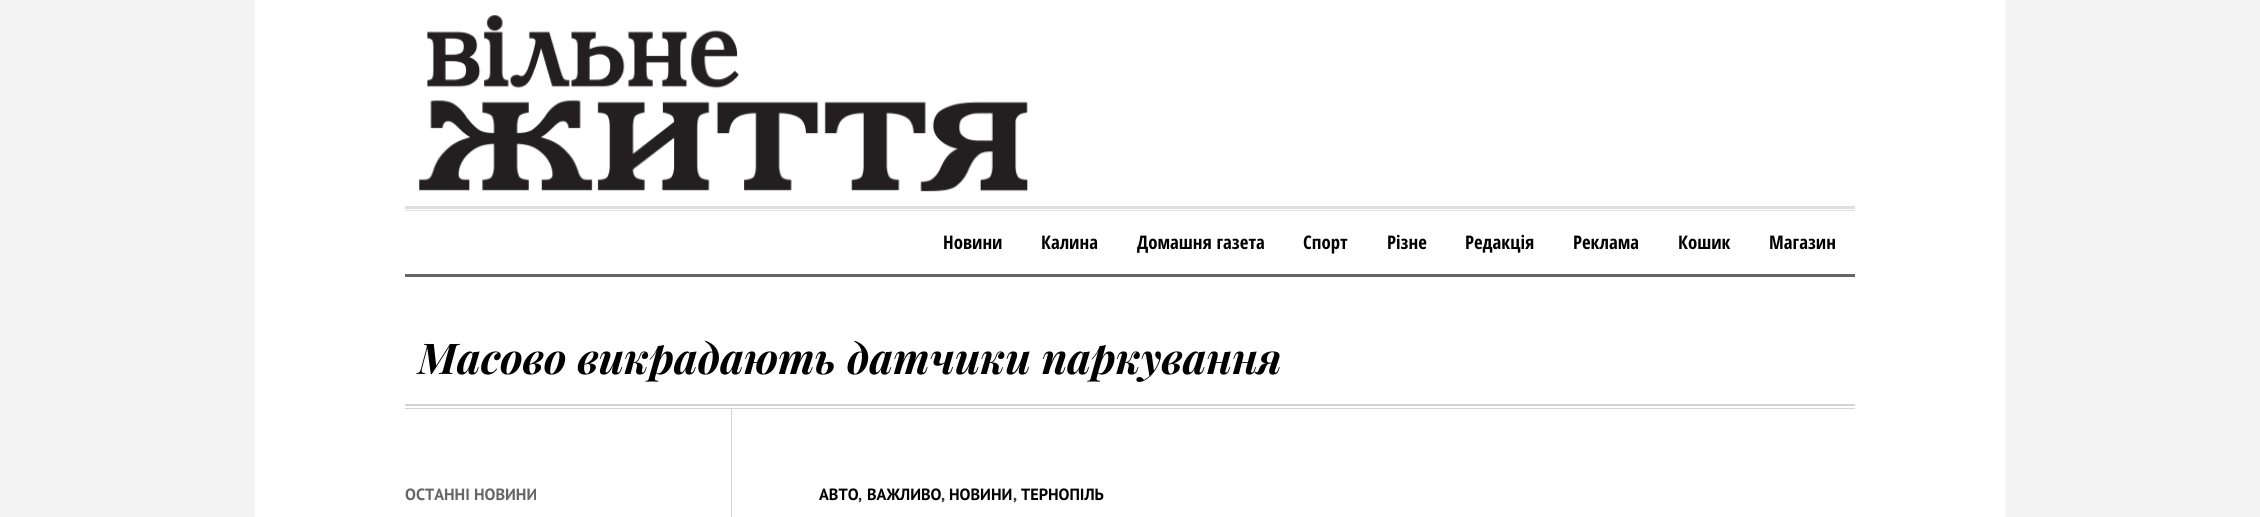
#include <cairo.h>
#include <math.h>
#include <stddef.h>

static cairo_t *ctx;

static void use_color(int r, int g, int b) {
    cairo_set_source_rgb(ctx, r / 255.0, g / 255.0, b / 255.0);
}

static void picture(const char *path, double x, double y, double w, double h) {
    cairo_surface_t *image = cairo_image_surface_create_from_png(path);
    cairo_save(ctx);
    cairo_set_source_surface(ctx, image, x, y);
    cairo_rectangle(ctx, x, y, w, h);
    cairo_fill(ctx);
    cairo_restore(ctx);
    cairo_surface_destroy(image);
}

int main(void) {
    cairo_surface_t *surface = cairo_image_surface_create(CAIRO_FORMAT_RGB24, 2260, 517);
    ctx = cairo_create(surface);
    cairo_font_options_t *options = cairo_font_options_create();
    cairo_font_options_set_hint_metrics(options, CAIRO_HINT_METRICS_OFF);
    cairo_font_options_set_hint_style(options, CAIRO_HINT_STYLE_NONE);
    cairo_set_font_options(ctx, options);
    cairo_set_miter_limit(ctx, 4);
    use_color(244, 244, 244);
    cairo_paint(ctx);
    use_color(255, 255, 255);
    cairo_rectangle(ctx, 255, 0, 1750, 517);
    cairo_fill(ctx);
    picture("img1.png", 419, 15, 609, 177);
    use_color(223, 223, 223);
    cairo_rectangle(ctx, 405, 210, 1450, 1);
    cairo_fill(ctx);
    cairo_rectangle(ctx, 405, 206, 1450, 3);
    cairo_fill(ctx);
    use_color(102, 102, 102);
    cairo_rectangle(ctx, 405, 274, 1450, 3);
    cairo_fill(ctx);
    cairo_select_font_face(ctx, "Open Sans Condensed", CAIRO_FONT_SLANT_NORMAL, CAIRO_FONT_WEIGHT_BOLD);
    cairo_set_font_size(ctx, 18.75);
    use_color(0, 0, 0);
    cairo_move_to(ctx, 943, 249);
    cairo_show_text(ctx, "Новини");
    cairo_move_to(ctx, 1041, 249);
    cairo_show_text(ctx, "Калина");
    cairo_move_to(ctx, 1137, 249);
    cairo_show_text(ctx, "Домашня газета");
    cairo_move_to(ctx, 1303, 249);
    cairo_show_text(ctx, "Спорт");
    cairo_move_to(ctx, 1387, 249);
    cairo_show_text(ctx, "Різне");
    cairo_move_to(ctx, 1465, 249);
    cairo_show_text(ctx, "Редакція");
    cairo_move_to(ctx, 1573, 249);
    cairo_show_text(ctx, "Реклама");
    cairo_move_to(ctx, 1678, 249);
    cairo_show_text(ctx, "Кошик");
    cairo_move_to(ctx, 1769, 249);
    cairo_show_text(ctx, "Магазин");
    use_color(212, 212, 212);
    cairo_rectangle(ctx, 405, 404, 1450, 2);
    cairo_fill(ctx);
    cairo_rectangle(ctx, 405, 408, 1450, 1);
    cairo_fill(ctx);
    cairo_select_font_face(ctx, "Playfair Display", CAIRO_FONT_SLANT_ITALIC, CAIRO_FONT_WEIGHT_BOLD);
    cairo_set_font_size(ctx, 42.5);
    use_color(0, 0, 0);
    cairo_move_to(ctx, 418, 374);
    cairo_show_text(ctx, "Масово викрадають датчики паркування");
    cairo_select_font_face(ctx, "PT Sans", CAIRO_FONT_SLANT_NORMAL, CAIRO_FONT_WEIGHT_BOLD);
    cairo_set_font_size(ctx, 16.25);
    use_color(102, 102, 102);
    cairo_move_to(ctx, 405, 500);
    cairo_show_text(ctx, "ОСТАННІ НОВИНИ");
    use_color(212, 212, 212);
    cairo_rectangle(ctx, 731, 409, 1, 108);
    cairo_fill(ctx);
    use_color(0, 0, 0);
    cairo_move_to(ctx, 819, 500);
    cairo_show_text(ctx, "АВТО");
    use_color(51, 51, 51);
    cairo_move_to(ctx, 858, 500);
    cairo_show_text(ctx, ",");
    use_color(0, 0, 0);
    cairo_move_to(ctx, 867, 500);
    cairo_show_text(ctx, "ВАЖЛИВО");
    use_color(51, 51, 51);
    cairo_move_to(ctx, 941, 500);
    cairo_show_text(ctx, ",");
    use_color(0, 0, 0);
    cairo_move_to(ctx, 949, 500);
    cairo_show_text(ctx, "НОВИНИ");
    use_color(51, 51, 51);
    cairo_move_to(ctx, 1013, 500);
    cairo_show_text(ctx, ",");
    use_color(0, 0, 0);
    cairo_move_to(ctx, 1021, 500);
    cairo_show_text(ctx, "ТЕРНОПІЛЬ");
    cairo_surface_write_to_png(surface, "result.png");
    cairo_font_options_destroy(options);
    cairo_destroy(ctx);
    cairo_surface_destroy(surface);
    return 0;
}
